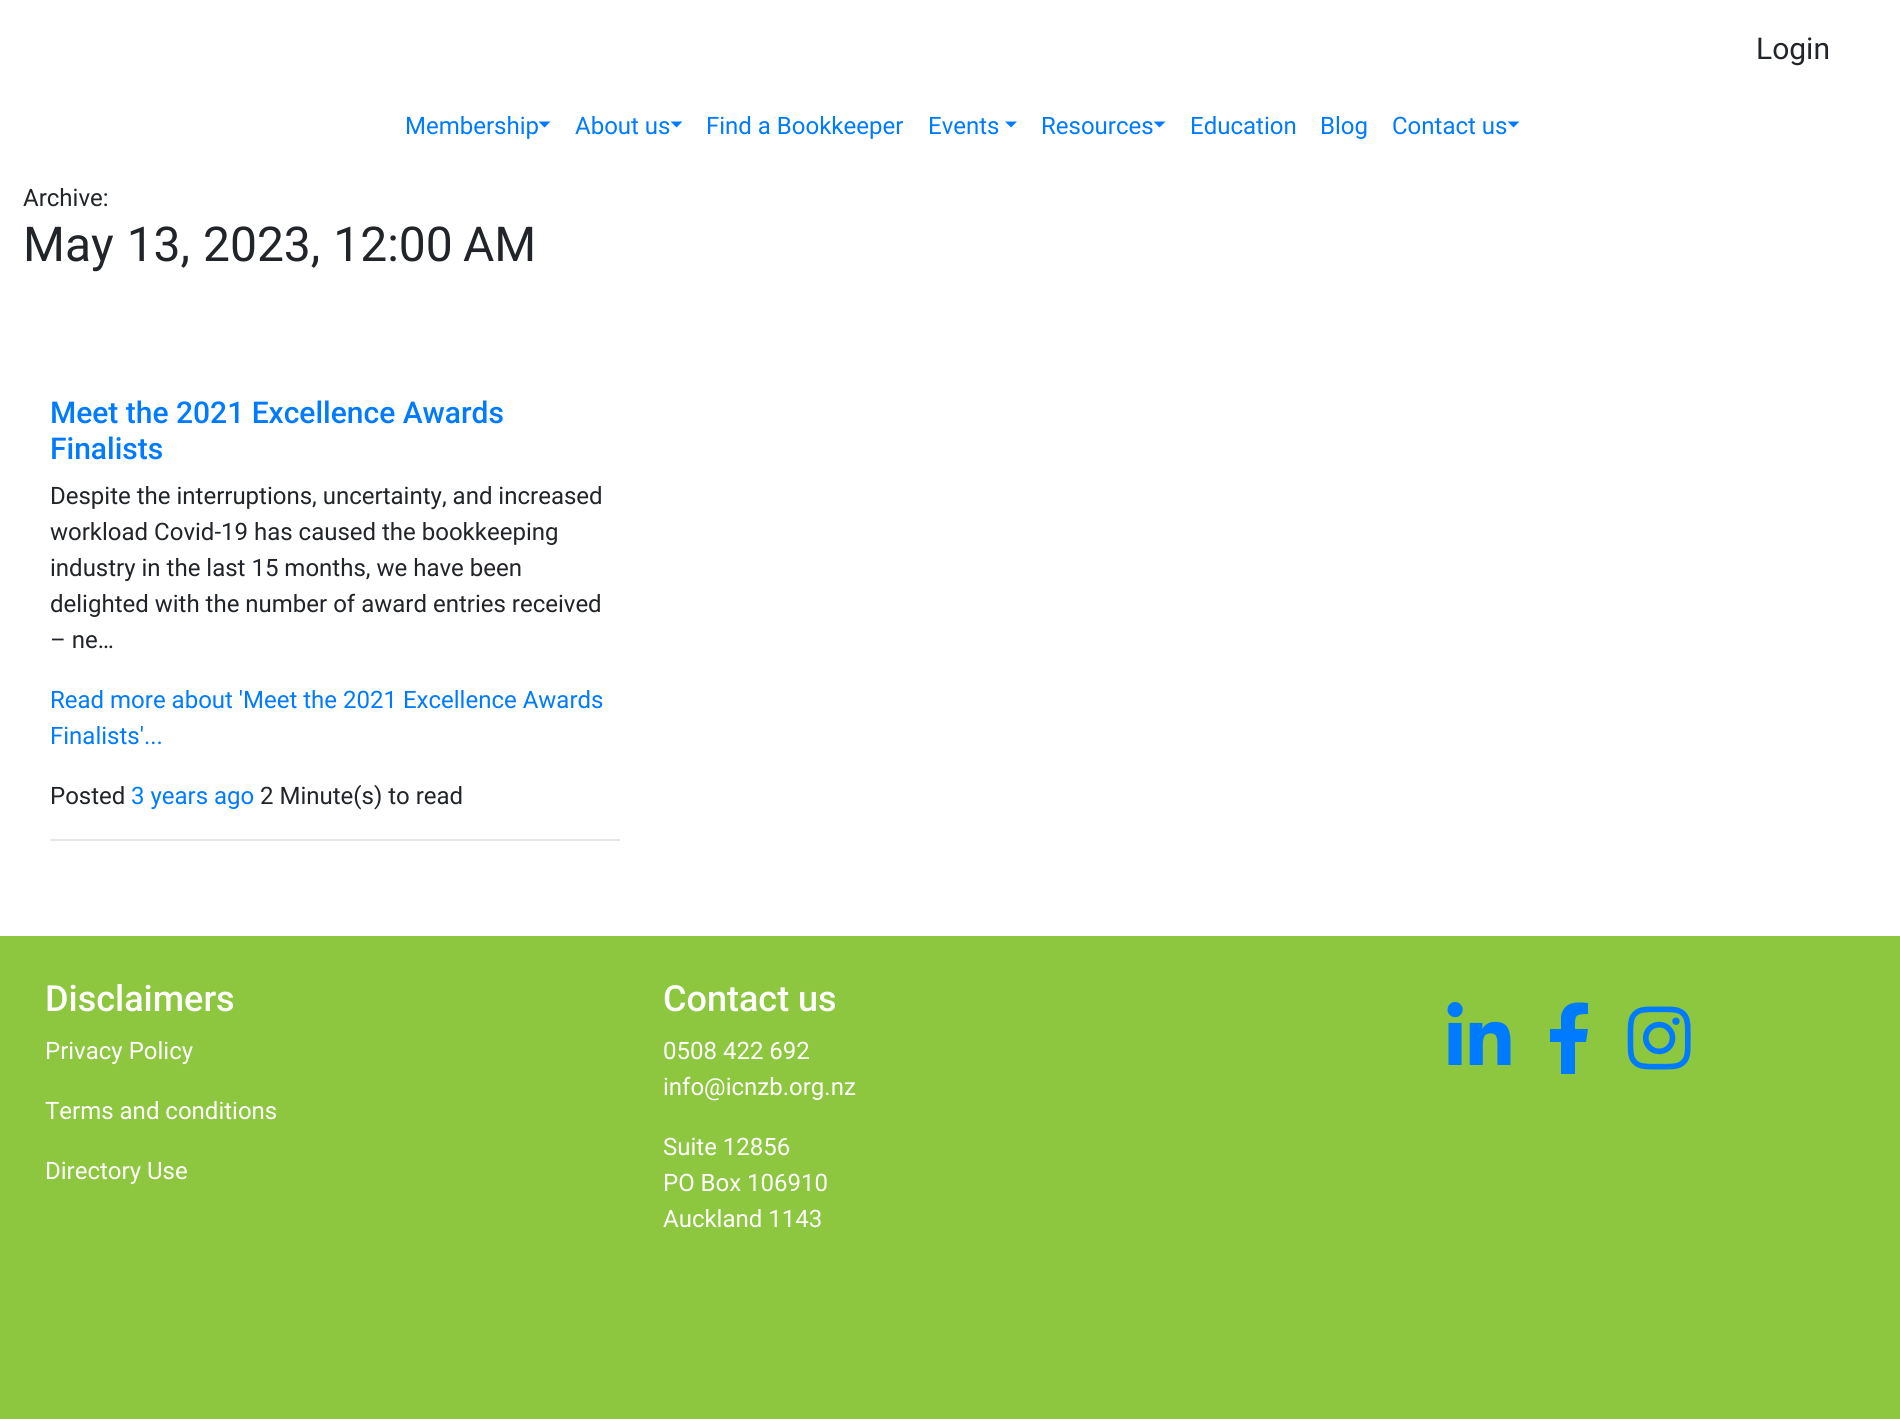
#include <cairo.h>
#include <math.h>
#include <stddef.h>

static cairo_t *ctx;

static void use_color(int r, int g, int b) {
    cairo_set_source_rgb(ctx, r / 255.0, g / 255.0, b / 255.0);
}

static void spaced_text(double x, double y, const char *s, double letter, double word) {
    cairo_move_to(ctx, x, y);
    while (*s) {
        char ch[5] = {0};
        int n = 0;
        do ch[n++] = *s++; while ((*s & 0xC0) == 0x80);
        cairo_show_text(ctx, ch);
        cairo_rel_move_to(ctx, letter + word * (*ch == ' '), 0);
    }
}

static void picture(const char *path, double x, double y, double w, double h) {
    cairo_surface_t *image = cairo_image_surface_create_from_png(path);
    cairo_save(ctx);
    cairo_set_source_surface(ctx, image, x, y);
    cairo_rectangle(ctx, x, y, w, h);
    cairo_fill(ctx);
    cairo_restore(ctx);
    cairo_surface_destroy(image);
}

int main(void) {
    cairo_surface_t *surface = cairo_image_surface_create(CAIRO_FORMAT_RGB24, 1900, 1419);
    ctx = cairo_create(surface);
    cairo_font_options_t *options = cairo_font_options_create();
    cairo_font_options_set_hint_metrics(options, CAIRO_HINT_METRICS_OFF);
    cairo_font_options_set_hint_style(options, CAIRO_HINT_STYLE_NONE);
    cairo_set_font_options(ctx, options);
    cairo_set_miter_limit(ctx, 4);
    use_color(255, 255, 255);
    cairo_paint(ctx);
    cairo_select_font_face(ctx, "Roboto", CAIRO_FONT_SLANT_NORMAL, CAIRO_FONT_WEIGHT_NORMAL);
    cairo_set_font_size(ctx, 30);
    use_color(33, 37, 41);
    cairo_move_to(ctx, 1756, 59);
    cairo_show_text(ctx, "Login");
    cairo_set_font_size(ctx, 24);
    use_color(0, 123, 255);
    cairo_move_to(ctx, 405, 134);
    cairo_show_text(ctx, "Membership");
    cairo_new_path(ctx);
    cairo_move_to(ctx, 538.5, 121.5);
    cairo_line_to(ctx, 550.5, 121.5);
    cairo_line_to(ctx, 544.5, 127.5);
    cairo_close_path(ctx);
    cairo_fill(ctx);
    cairo_move_to(ctx, 575, 134);
    cairo_show_text(ctx, "About us");
    cairo_new_path(ctx);
    cairo_move_to(ctx, 670.5, 121.5);
    cairo_line_to(ctx, 682.5, 121.5);
    cairo_line_to(ctx, 676.5, 127.5);
    cairo_close_path(ctx);
    cairo_fill(ctx);
    cairo_move_to(ctx, 706, 134);
    cairo_show_text(ctx, "Find a Bookkeeper");
    cairo_move_to(ctx, 928, 134);
    cairo_show_text(ctx, "Events");
    cairo_new_path(ctx);
    cairo_move_to(ctx, 1005, 121.5);
    cairo_line_to(ctx, 1017, 121.5);
    cairo_line_to(ctx, 1011, 127.5);
    cairo_close_path(ctx);
    cairo_fill(ctx);
    cairo_move_to(ctx, 1041, 134);
    cairo_show_text(ctx, "Resources");
    cairo_new_path(ctx);
    cairo_move_to(ctx, 1153.5, 121.5);
    cairo_line_to(ctx, 1165.5, 121.5);
    cairo_line_to(ctx, 1159.5, 127.5);
    cairo_close_path(ctx);
    cairo_fill(ctx);
    cairo_move_to(ctx, 1190, 134);
    cairo_show_text(ctx, "Education");
    cairo_move_to(ctx, 1320, 134);
    cairo_show_text(ctx, "Blog");
    cairo_move_to(ctx, 1392, 134);
    cairo_show_text(ctx, "Contact us");
    cairo_new_path(ctx);
    cairo_move_to(ctx, 1507.5, 121.5);
    cairo_line_to(ctx, 1519.5, 121.5);
    cairo_line_to(ctx, 1513.5, 127.5);
    cairo_close_path(ctx);
    cairo_fill(ctx);
    use_color(33, 37, 41);
    cairo_move_to(ctx, 23, 206);
    cairo_show_text(ctx, "Archive:");
    cairo_set_font_size(ctx, 48);
    spaced_text(23, 261, "May 13, 2023, 12:00", 0, 1);
    cairo_move_to(ctx, 463, 261);
    cairo_show_text(ctx, "AM");
    cairo_select_font_face(ctx, "Roboto Medium", CAIRO_FONT_SLANT_NORMAL, CAIRO_FONT_WEIGHT_NORMAL);
    cairo_set_font_size(ctx, 30);
    use_color(0, 123, 255);
    cairo_move_to(ctx, 50, 423);
    cairo_show_text(ctx, "Meet the 2021 Excellence Awards");
    cairo_move_to(ctx, 50, 459);
    cairo_show_text(ctx, "Finalists");
    cairo_select_font_face(ctx, "Roboto", CAIRO_FONT_SLANT_NORMAL, CAIRO_FONT_WEIGHT_NORMAL);
    cairo_set_font_size(ctx, 24);
    use_color(33, 37, 41);
    cairo_move_to(ctx, 50, 504);
    cairo_show_text(ctx, "Despite the interruptions, uncertainty, and increased");
    cairo_move_to(ctx, 50, 540);
    cairo_show_text(ctx, "workload Covid-19 has caused the bookkeeping");
    cairo_move_to(ctx, 50, 576);
    cairo_show_text(ctx, "industry in the last 15 months, we have been");
    cairo_move_to(ctx, 50, 612);
    cairo_show_text(ctx, "delighted with the number of award entries received");
    cairo_move_to(ctx, 50, 648);
    cairo_show_text(ctx, "– ne…");
    use_color(0, 123, 255);
    cairo_move_to(ctx, 50, 708);
    cairo_show_text(ctx, "Read more about 'Meet the 2021 Excellence Awards");
    cairo_move_to(ctx, 50, 744);
    cairo_show_text(ctx, "Finalists'...");
    use_color(33, 37, 41);
    cairo_move_to(ctx, 50, 804);
    cairo_show_text(ctx, "Posted");
    use_color(0, 123, 255);
    cairo_move_to(ctx, 131, 804);
    cairo_show_text(ctx, "3 years ago");
    use_color(33, 37, 41);
    cairo_move_to(ctx, 260, 804);
    cairo_show_text(ctx, "2 Minute(s) to read");
    use_color(230, 230, 230);
    cairo_rectangle(ctx, 50, 839, 570, 2);
    cairo_fill(ctx);
    use_color(141, 198, 63);
    cairo_rectangle(ctx, 0, 936, 1900, 483);
    cairo_fill(ctx);
    cairo_select_font_face(ctx, "Roboto Medium", CAIRO_FONT_SLANT_NORMAL, CAIRO_FONT_WEIGHT_NORMAL);
    cairo_set_font_size(ctx, 36);
    use_color(255, 255, 255);
    cairo_move_to(ctx, 45, 1011);
    cairo_show_text(ctx, "Disclaimers");
    cairo_select_font_face(ctx, "Roboto", CAIRO_FONT_SLANT_NORMAL, CAIRO_FONT_WEIGHT_NORMAL);
    cairo_set_font_size(ctx, 24);
    cairo_move_to(ctx, 45, 1059);
    cairo_show_text(ctx, "Privacy Policy");
    cairo_move_to(ctx, 45, 1119);
    cairo_show_text(ctx, "Terms and conditions");
    cairo_move_to(ctx, 45, 1179);
    cairo_show_text(ctx, "Directory Use");
    cairo_select_font_face(ctx, "Roboto Medium", CAIRO_FONT_SLANT_NORMAL, CAIRO_FONT_WEIGHT_NORMAL);
    cairo_set_font_size(ctx, 36);
    cairo_move_to(ctx, 663, 1011);
    cairo_show_text(ctx, "Contact us");
    cairo_select_font_face(ctx, "Roboto", CAIRO_FONT_SLANT_NORMAL, CAIRO_FONT_WEIGHT_NORMAL);
    cairo_set_font_size(ctx, 24);
    cairo_move_to(ctx, 663, 1059);
    cairo_show_text(ctx, "0508 422 692");
    cairo_move_to(ctx, 663, 1095);
    cairo_show_text(ctx, "info@icnzb.org.nz");
    cairo_move_to(ctx, 663, 1155);
    cairo_show_text(ctx, "Suite 12856");
    cairo_move_to(ctx, 663, 1191);
    cairo_show_text(ctx, "PO Box 106910");
    cairo_move_to(ctx, 663, 1227);
    cairo_show_text(ctx, "Auckland 1143");
    picture("img1.png", 1447, 1002, 64, 63);
    use_color(0, 123, 255);
    cairo_new_path(ctx);
    cairo_move_to(ctx, 1586, 1042);
    cairo_line_to(ctx, 1575, 1042);
    cairo_line_to(ctx, 1575, 1074);
    cairo_line_to(ctx, 1561, 1074);
    cairo_line_to(ctx, 1561, 1042);
    cairo_line_to(ctx, 1550, 1042);
    cairo_line_to(ctx, 1550, 1029);
    cairo_line_to(ctx, 1561, 1029);
    cairo_line_to(ctx, 1561, 1016);
    cairo_curve_to(ctx, 1564, 1001, 1577, 1002, 1588, 1003);
    cairo_line_to(ctx, 1588, 1014);
    cairo_curve_to(ctx, 1574, 1014, 1575, 1016, 1575, 1029);
    cairo_line_to(ctx, 1588, 1029);
    cairo_close_path(ctx);
    cairo_fill(ctx);
    picture("img2.png", 1627, 1006, 64, 64);
    cairo_surface_write_to_png(surface, "result.png");
    cairo_font_options_destroy(options);
    cairo_destroy(ctx);
    cairo_surface_destroy(surface);
    return 0;
}
